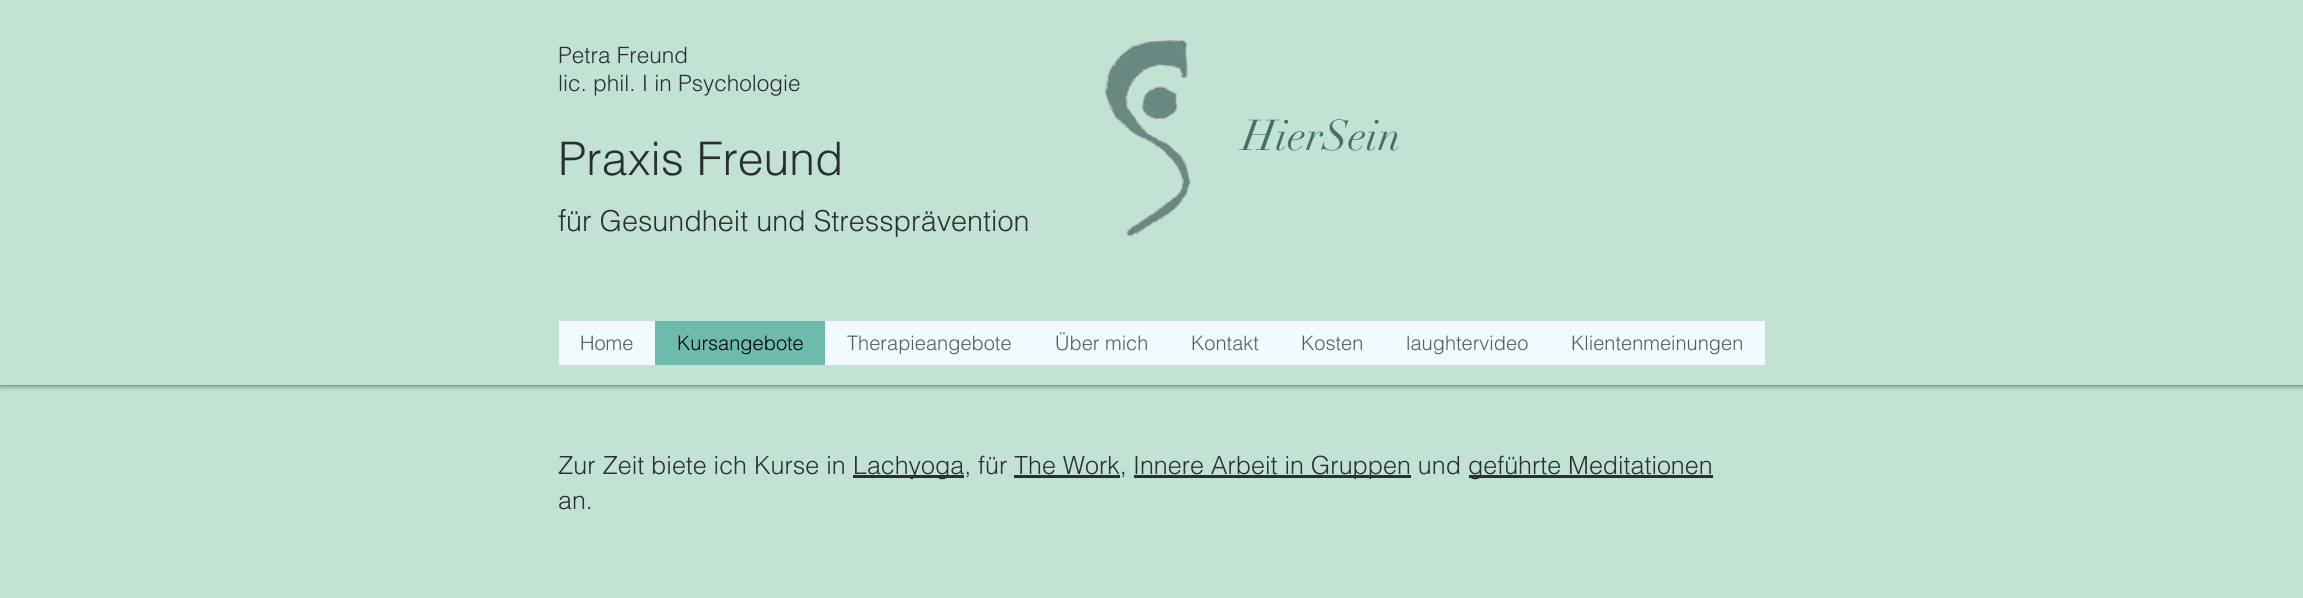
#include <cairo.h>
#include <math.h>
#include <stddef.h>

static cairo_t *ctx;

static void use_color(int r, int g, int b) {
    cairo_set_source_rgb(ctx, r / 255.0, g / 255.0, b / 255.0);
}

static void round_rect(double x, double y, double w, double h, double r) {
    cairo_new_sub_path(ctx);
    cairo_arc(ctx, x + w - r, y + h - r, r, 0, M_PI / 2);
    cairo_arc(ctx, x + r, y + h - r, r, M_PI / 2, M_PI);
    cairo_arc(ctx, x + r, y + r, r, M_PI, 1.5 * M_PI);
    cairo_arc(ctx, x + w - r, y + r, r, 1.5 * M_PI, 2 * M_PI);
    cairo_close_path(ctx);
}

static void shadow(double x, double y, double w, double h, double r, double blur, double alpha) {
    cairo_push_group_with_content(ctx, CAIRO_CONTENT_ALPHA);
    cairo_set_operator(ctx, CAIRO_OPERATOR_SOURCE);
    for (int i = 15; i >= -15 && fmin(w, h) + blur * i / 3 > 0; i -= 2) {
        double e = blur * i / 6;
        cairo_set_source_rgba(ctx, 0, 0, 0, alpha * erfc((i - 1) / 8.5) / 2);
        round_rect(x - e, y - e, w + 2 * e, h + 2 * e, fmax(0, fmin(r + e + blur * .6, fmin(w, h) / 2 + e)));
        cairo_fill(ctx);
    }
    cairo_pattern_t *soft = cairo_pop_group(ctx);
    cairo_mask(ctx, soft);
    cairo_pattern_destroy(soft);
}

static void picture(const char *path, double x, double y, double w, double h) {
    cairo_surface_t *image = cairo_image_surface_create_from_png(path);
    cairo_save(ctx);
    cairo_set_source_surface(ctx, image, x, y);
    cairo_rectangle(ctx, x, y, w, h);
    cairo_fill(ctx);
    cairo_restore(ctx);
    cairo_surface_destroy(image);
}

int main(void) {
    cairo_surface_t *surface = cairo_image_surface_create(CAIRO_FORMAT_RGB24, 2303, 598);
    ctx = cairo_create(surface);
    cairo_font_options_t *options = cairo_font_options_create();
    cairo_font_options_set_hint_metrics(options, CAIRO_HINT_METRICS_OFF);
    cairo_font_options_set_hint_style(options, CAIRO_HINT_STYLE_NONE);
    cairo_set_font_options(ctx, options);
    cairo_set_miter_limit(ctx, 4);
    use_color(194, 227, 211);
    cairo_paint(ctx);
    cairo_save(ctx);
    cairo_rectangle(ctx, 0, 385, 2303, 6);
    cairo_clip(ctx);
    use_color(0, 0, 0);
    shadow(0, 0, 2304, 385, 0, 3, 0.7);
    cairo_restore(ctx);
    cairo_select_font_face(ctx, "helvetica Light", CAIRO_FONT_SLANT_NORMAL, CAIRO_FONT_WEIGHT_NORMAL);
    cairo_set_font_size(ctx, 22.5);
    use_color(41, 47, 51);
    cairo_move_to(ctx, 558, 63);
    cairo_show_text(ctx, "Petra Freund");
    cairo_move_to(ctx, 558, 91);
    cairo_show_text(ctx, "lic. phil. I in Psychologie");
    picture("img1.png", 1104, 40, 87, 197);
    cairo_select_font_face(ctx, "didot", CAIRO_FONT_SLANT_NORMAL, CAIRO_FONT_WEIGHT_NORMAL);
    cairo_set_font_size(ctx, 42.5);
    use_color(65, 113, 98);
    cairo_move_to(ctx, 1242, 150);
    cairo_show_text(ctx, "HierSein");
    cairo_select_font_face(ctx, "helvetica Light", CAIRO_FONT_SLANT_NORMAL, CAIRO_FONT_WEIGHT_NORMAL);
    cairo_set_font_size(ctx, 46.25);
    use_color(41, 47, 51);
    cairo_move_to(ctx, 558, 175);
    cairo_show_text(ctx, "Praxis Freund");
    cairo_set_font_size(ctx, 30);
    cairo_move_to(ctx, 558, 231);
    cairo_show_text(ctx, "f");
    cairo_set_font_size(ctx, 28.75);
    cairo_move_to(ctx, 566, 231);
    cairo_show_text(ctx, "ür Gesundheit und Stressprävention");
    use_color(240, 250, 255);
    cairo_rectangle(ctx, 559, 321, 1206, 44);
    cairo_fill(ctx);
    cairo_set_font_size(ctx, 20);
    use_color(81, 94, 101);
    cairo_move_to(ctx, 580, 350);
    cairo_show_text(ctx, "Home");
    use_color(109, 187, 173);
    cairo_rectangle(ctx, 655, 321, 170, 44);
    cairo_fill(ctx);
    use_color(0, 0, 0);
    cairo_move_to(ctx, 677, 350);
    cairo_show_text(ctx, "Kursangebote");
    use_color(81, 94, 101);
    cairo_move_to(ctx, 847, 350);
    cairo_show_text(ctx, "Therapieangebote");
    cairo_move_to(ctx, 1055, 350);
    cairo_show_text(ctx, "Über mich");
    cairo_move_to(ctx, 1191, 350);
    cairo_show_text(ctx, "Kontakt");
    cairo_move_to(ctx, 1301, 350);
    cairo_show_text(ctx, "Kosten");
    cairo_move_to(ctx, 1406, 350);
    cairo_show_text(ctx, "laughtervideo");
    cairo_move_to(ctx, 1571, 350);
    cairo_show_text(ctx, "Klientenmeinungen");
    cairo_set_font_size(ctx, 25);
    use_color(41, 47, 51);
    cairo_move_to(ctx, 558, 474);
    cairo_show_text(ctx, "Zur Zeit biete ich Kurse in");
    cairo_rectangle(ctx, 853, 475, 111, 3);
    cairo_fill(ctx);
    cairo_move_to(ctx, 853, 474);
    cairo_show_text(ctx, "Lachyoga, für The Work,");
    cairo_rectangle(ctx, 1134, 475, 277, 3);
    cairo_fill(ctx);
    cairo_move_to(ctx, 1133, 474);
    cairo_show_text(ctx, "Innere Arbeit in Gruppen und");
    cairo_rectangle(ctx, 1014, 475, 106, 3);
    cairo_fill(ctx);
    cairo_rectangle(ctx, 1469, 475, 244, 3);
    cairo_fill(ctx);
    cairo_move_to(ctx, 1468, 474);
    cairo_show_text(ctx, "geführte Meditationen");
    cairo_move_to(ctx, 558, 509);
    cairo_show_text(ctx, "an.");
    cairo_surface_write_to_png(surface, "result.png");
    cairo_font_options_destroy(options);
    cairo_destroy(ctx);
    cairo_surface_destroy(surface);
    return 0;
}
